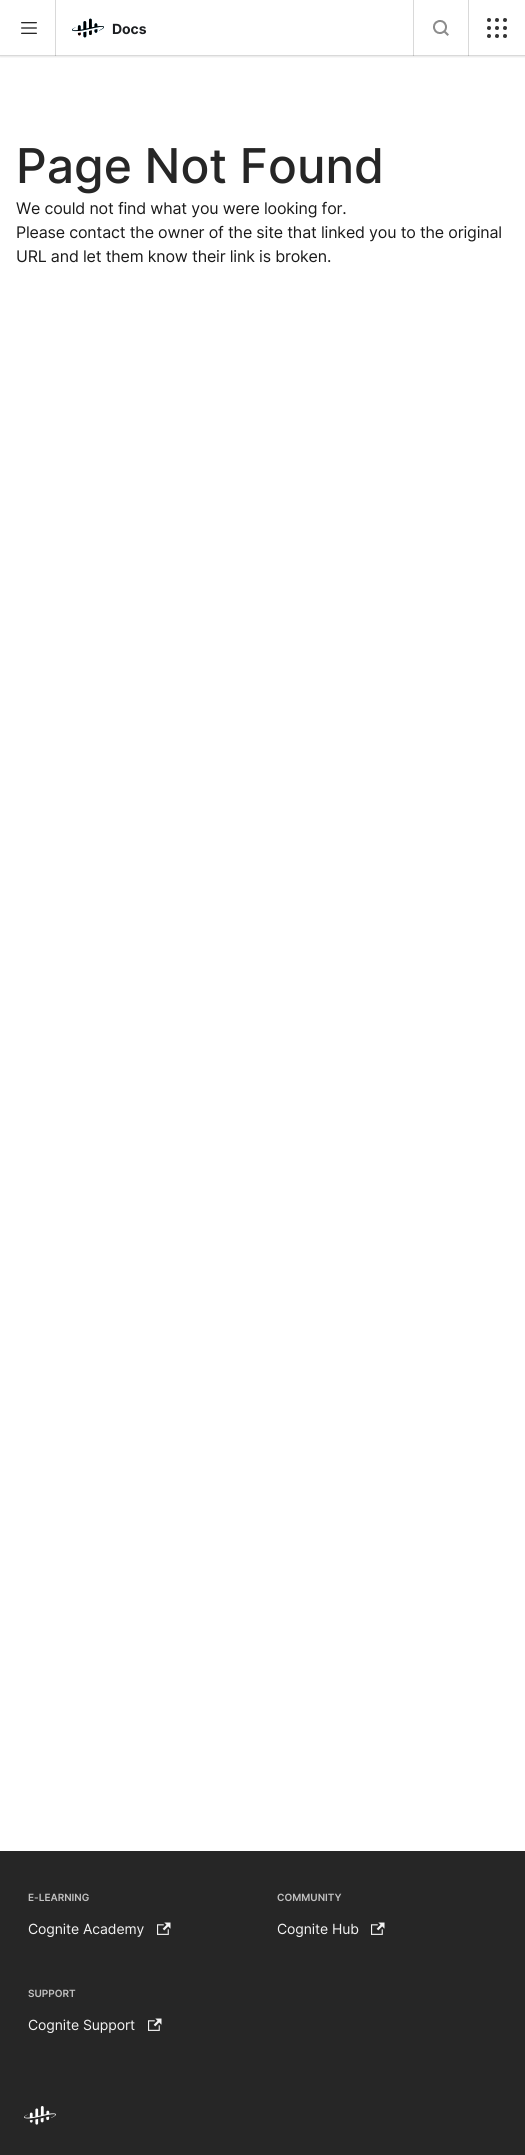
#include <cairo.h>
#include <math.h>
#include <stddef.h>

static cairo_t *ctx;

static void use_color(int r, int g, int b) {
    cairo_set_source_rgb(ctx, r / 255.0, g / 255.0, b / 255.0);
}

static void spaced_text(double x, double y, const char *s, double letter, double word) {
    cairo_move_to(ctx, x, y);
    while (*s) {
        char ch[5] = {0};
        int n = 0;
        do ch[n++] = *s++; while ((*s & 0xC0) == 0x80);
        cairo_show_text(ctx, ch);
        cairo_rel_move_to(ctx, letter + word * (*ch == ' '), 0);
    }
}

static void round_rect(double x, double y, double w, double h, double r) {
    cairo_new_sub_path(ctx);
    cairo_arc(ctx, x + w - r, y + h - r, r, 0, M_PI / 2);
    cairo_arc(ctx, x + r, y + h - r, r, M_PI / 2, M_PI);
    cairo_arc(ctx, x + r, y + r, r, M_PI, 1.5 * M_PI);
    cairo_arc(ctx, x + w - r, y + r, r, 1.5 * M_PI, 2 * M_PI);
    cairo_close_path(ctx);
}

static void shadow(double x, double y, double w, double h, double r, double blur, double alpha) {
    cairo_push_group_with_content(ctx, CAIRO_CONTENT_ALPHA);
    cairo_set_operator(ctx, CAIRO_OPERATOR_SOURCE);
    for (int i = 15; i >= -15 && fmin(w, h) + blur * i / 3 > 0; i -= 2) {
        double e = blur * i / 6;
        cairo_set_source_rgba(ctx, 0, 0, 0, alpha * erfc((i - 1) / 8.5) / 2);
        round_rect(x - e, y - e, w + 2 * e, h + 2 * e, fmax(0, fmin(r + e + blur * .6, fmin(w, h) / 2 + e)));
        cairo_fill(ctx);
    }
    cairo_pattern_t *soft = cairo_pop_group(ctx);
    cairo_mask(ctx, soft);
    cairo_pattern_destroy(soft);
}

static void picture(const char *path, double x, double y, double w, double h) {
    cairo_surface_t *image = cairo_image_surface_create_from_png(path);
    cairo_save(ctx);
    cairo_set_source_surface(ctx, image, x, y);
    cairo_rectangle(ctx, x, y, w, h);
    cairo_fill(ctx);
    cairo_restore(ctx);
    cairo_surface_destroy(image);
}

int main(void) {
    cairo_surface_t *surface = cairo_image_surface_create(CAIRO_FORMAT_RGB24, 525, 2155);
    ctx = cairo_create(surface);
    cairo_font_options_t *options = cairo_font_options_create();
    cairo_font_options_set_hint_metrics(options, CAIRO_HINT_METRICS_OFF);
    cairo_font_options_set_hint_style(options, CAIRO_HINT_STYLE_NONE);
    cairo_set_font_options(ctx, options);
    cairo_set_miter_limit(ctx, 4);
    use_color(255, 255, 255);
    cairo_paint(ctx);
    use_color(217, 217, 217);
    cairo_rectangle(ctx, 468, 0, 1, 56);
    cairo_fill(ctx);
    cairo_rectangle(ctx, 413, 0, 1, 56);
    cairo_fill(ctx);
    cairo_rectangle(ctx, 55, 0, 1, 56);
    cairo_fill(ctx);
    cairo_save(ctx);
    cairo_rectangle(ctx, 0, 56, 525, 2);
    cairo_clip(ctx);
    use_color(0, 0, 0);
    shadow(0, 1, 525, 56, 0, 1, 0.1);
    cairo_restore(ctx);
    cairo_rectangle(ctx, 0, 55, 525, 1);
    cairo_fill(ctx);
    use_color(184, 184, 184);
    cairo_rectangle(ctx, 468, 55, 1, 1);
    cairo_fill(ctx);
    cairo_rectangle(ctx, 413, 55, 1, 1);
    cairo_fill(ctx);
    cairo_rectangle(ctx, 55, 55, 1, 1);
    cairo_fill(ctx);
    picture("img1.png", 21, 22, 16, 12);
    picture("img2.png", 72, 18, 32, 20);
    cairo_select_font_face(ctx, "Inter", CAIRO_FONT_SLANT_NORMAL, CAIRO_FONT_WEIGHT_BOLD);
    cairo_set_font_size(ctx, 14);
    use_color(28, 30, 33);
    spaced_text(112, 34, "Docs", -0.1, 0);
    picture("img3.png", 433, 20, 16, 16);
    picture("img4.png", 487, 18, 20, 20);
    cairo_select_font_face(ctx, "Inter Medium", CAIRO_FONT_SLANT_NORMAL, CAIRO_FONT_WEIGHT_NORMAL);
    cairo_set_font_size(ctx, 48);
    use_color(38, 38, 38);
    cairo_move_to(ctx, 16, 183);
    cairo_show_text(ctx, "Page Not Found");
    cairo_select_font_face(ctx, "Inter", CAIRO_FONT_SLANT_NORMAL, CAIRO_FONT_WEIGHT_NORMAL);
    cairo_set_font_size(ctx, 16);
    use_color(26, 26, 26);
    spaced_text(16, 214, "We could not find what you were looking for.", -0.18, 0);
    spaced_text(16, 238, "Please contact the owner of the site that linked you to the original", -0.18, 0);
    spaced_text(16, 262, "URL and let them know their link is broken.", -0.18, 0);
    use_color(38, 38, 38);
    cairo_rectangle(ctx, 0, 1851, 525, 304);
    cairo_fill(ctx);
    cairo_select_font_face(ctx, "Inter SemiBold", CAIRO_FONT_SLANT_NORMAL, CAIRO_FONT_WEIGHT_NORMAL);
    cairo_set_font_size(ctx, 10);
    use_color(194, 194, 194);
    cairo_move_to(ctx, 28, 1901);
    cairo_show_text(ctx, "E-LEARNING");
    cairo_select_font_face(ctx, "Inter", CAIRO_FONT_SLANT_NORMAL, CAIRO_FONT_WEIGHT_NORMAL);
    cairo_set_font_size(ctx, 14);
    use_color(244, 244, 244);
    spaced_text(28, 1934, "Cognite Academy", -0.1, 0);
    picture("img5.png", 157, 1922, 14, 13);
    cairo_select_font_face(ctx, "Inter SemiBold", CAIRO_FONT_SLANT_NORMAL, CAIRO_FONT_WEIGHT_NORMAL);
    cairo_set_font_size(ctx, 10);
    use_color(194, 194, 194);
    cairo_move_to(ctx, 277, 1901);
    cairo_show_text(ctx, "COMMUNITY");
    cairo_select_font_face(ctx, "Inter", CAIRO_FONT_SLANT_NORMAL, CAIRO_FONT_WEIGHT_NORMAL);
    cairo_set_font_size(ctx, 14);
    use_color(244, 244, 244);
    spaced_text(277, 1934, "Cognite Hub", -0.1, 0);
    picture("img5.png", 371, 1922, 14, 13);
    cairo_select_font_face(ctx, "Inter SemiBold", CAIRO_FONT_SLANT_NORMAL, CAIRO_FONT_WEIGHT_NORMAL);
    cairo_set_font_size(ctx, 10);
    use_color(194, 194, 194);
    cairo_move_to(ctx, 28, 1997);
    cairo_show_text(ctx, "SUPPORT");
    cairo_select_font_face(ctx, "Inter", CAIRO_FONT_SLANT_NORMAL, CAIRO_FONT_WEIGHT_NORMAL);
    cairo_set_font_size(ctx, 14);
    use_color(244, 244, 244);
    spaced_text(28, 2030, "Cognite Support", -0.1, 0);
    picture("img5.png", 148, 2018, 14, 13);
    picture("img6.png", 24, 2106, 32, 19);
    cairo_surface_write_to_png(surface, "result.png");
    cairo_font_options_destroy(options);
    cairo_destroy(ctx);
    cairo_surface_destroy(surface);
    return 0;
}
